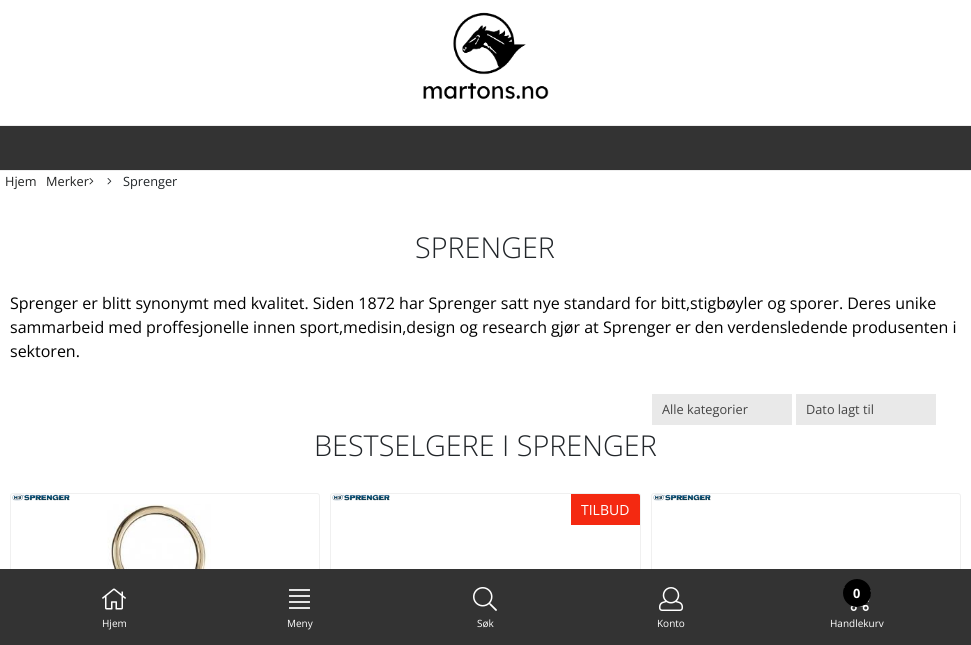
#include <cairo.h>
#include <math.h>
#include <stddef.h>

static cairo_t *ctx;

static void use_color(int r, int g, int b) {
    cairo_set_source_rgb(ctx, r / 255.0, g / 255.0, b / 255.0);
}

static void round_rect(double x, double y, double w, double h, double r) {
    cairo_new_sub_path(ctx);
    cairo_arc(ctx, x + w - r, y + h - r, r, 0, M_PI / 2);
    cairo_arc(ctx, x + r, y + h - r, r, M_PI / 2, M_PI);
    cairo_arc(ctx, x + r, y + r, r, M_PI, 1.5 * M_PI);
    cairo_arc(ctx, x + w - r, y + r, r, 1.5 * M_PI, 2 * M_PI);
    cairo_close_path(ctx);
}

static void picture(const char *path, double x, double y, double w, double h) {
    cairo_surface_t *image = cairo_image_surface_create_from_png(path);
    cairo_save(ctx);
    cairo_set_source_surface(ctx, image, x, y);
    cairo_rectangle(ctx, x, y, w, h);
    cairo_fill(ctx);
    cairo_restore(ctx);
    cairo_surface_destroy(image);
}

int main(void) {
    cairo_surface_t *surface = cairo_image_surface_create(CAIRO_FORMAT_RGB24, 971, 645);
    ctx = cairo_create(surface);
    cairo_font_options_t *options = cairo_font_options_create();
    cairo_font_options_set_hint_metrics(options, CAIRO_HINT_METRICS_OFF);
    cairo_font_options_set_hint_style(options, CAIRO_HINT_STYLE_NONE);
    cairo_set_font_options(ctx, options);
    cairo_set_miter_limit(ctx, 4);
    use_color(255, 255, 255);
    cairo_paint(ctx);
    picture("img1.png", 423, 12, 126, 88);
    use_color(51, 51, 51);
    cairo_rectangle(ctx, 0, 126, 971, 44);
    cairo_fill(ctx);
    use_color(238, 238, 238);
    cairo_rectangle(ctx, 0, 125, 971, 1);
    cairo_fill(ctx);
    cairo_rectangle(ctx, 0, 170, 971, 1);
    cairo_fill(ctx);
    cairo_select_font_face(ctx, "Open Sans", CAIRO_FONT_SLANT_NORMAL, CAIRO_FONT_WEIGHT_NORMAL);
    cairo_set_font_size(ctx, 12.75);
    use_color(32, 33, 33);
    cairo_move_to(ctx, 5, 186);
    cairo_show_text(ctx, "Hjem");
    cairo_move_to(ctx, 46, 186);
    cairo_show_text(ctx, "Merker");
    picture("img2.png", 89, 178, 5, 7);
    picture("img3.png", 107, 178, 5, 7);
    use_color(33, 37, 41);
    cairo_move_to(ctx, 123, 186);
    cairo_show_text(ctx, "Sprenger");
    cairo_select_font_face(ctx, "Open Sans Light", CAIRO_FONT_SLANT_NORMAL, CAIRO_FONT_WEIGHT_NORMAL);
    cairo_set_font_size(ctx, 28.75);
    cairo_move_to(ctx, 415, 258);
    cairo_show_text(ctx, "SPRENGER");
    cairo_select_font_face(ctx, "Open Sans", CAIRO_FONT_SLANT_NORMAL, CAIRO_FONT_WEIGHT_NORMAL);
    cairo_set_font_size(ctx, 16);
    use_color(0, 0, 0);
    cairo_move_to(ctx, 10, 309);
    cairo_show_text(ctx, "Sprenger er blitt synonymt med kvalitet. Siden 1872 har Sprenger satt nye standard for bitt,stigbøyler og sporer. Deres unike");
    cairo_move_to(ctx, 10, 333);
    cairo_show_text(ctx, "sammarbeid med proffesjonelle innen sport,medisin,design og research gjør at Sprenger er den verdensledende produsenten i");
    cairo_move_to(ctx, 10, 357);
    cairo_show_text(ctx, "sektoren.");
    use_color(233, 233, 233);
    cairo_rectangle(ctx, 652, 394, 140, 31);
    cairo_fill(ctx);
    cairo_set_font_size(ctx, 12.75);
    use_color(68, 68, 68);
    cairo_move_to(ctx, 662, 414);
    cairo_show_text(ctx, "Alle kategorier");
    use_color(233, 233, 233);
    cairo_rectangle(ctx, 796, 394, 140, 31);
    cairo_fill(ctx);
    use_color(68, 68, 68);
    cairo_move_to(ctx, 806, 414);
    cairo_show_text(ctx, "Dato lagt til");
    cairo_select_font_face(ctx, "Open Sans Light", CAIRO_FONT_SLANT_NORMAL, CAIRO_FONT_WEIGHT_NORMAL);
    cairo_set_font_size(ctx, 28.75);
    use_color(33, 37, 41);
    cairo_move_to(ctx, 314, 456);
    cairo_show_text(ctx, "BESTSELGERE I SPRENGER");
    round_rect(10.5, 493.5, 309, 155, 2.5);
    use_color(240, 240, 240);
    cairo_set_line_width(ctx, 1);
    cairo_stroke(ctx);
    picture("img4.png", 12, 494, 58, 7);
    picture("img5.png", 107, 504, 104, 65);
    round_rect(330.5, 493.5, 310, 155, 2.5);
    cairo_stroke(ctx);
    picture("img6.png", 332, 494, 58, 7);
    use_color(244, 41, 17);
    cairo_new_path(ctx);
    cairo_move_to(ctx, 571, 494);
    cairo_line_to(ctx, 638, 494);
    cairo_curve_to(ctx, 639, 494, 640, 495, 640, 496);
    cairo_line_to(ctx, 640, 525);
    cairo_line_to(ctx, 571, 525);
    cairo_close_path(ctx);
    cairo_fill(ctx);
    cairo_select_font_face(ctx, "Open Sans", CAIRO_FONT_SLANT_NORMAL, CAIRO_FONT_WEIGHT_NORMAL);
    cairo_set_font_size(ctx, 14);
    use_color(255, 255, 255);
    cairo_move_to(ctx, 581, 515);
    cairo_show_text(ctx, "TILBUD");
    round_rect(651.5, 493.5, 309, 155, 2.5);
    use_color(240, 240, 240);
    cairo_stroke(ctx);
    picture("img6.png", 653, 494, 58, 7);
    use_color(51, 51, 51);
    cairo_rectangle(ctx, 0, 569, 971, 76);
    cairo_fill(ctx);
    picture("img7.png", 102, 588, 24, 22);
    cairo_set_font_size(ctx, 10);
    use_color(255, 255, 255);
    cairo_move_to(ctx, 102, 627);
    cairo_show_text(ctx, "Hjem");
    picture("img8.png", 289, 589, 21, 20);
    cairo_move_to(ctx, 287, 627);
    cairo_show_text(ctx, "Meny");
    picture("img9.png", 473, 587, 24, 24);
    cairo_move_to(ctx, 477, 627);
    cairo_show_text(ctx, "Søk");
    picture("img10.png", 659, 587, 24, 24);
    cairo_move_to(ctx, 657, 627);
    cairo_show_text(ctx, "Konto");
    picture("img11.png", 844, 587, 27, 24);
    use_color(0, 0, 0);
    cairo_arc(ctx, 857, 593, 13, 0, 2 * M_PI);
    cairo_fill_preserve(ctx);
    cairo_set_line_width(ctx, 2);
    cairo_stroke(ctx);
    cairo_select_font_face(ctx, "Open Sans", CAIRO_FONT_SLANT_NORMAL, CAIRO_FONT_WEIGHT_BOLD);
    cairo_set_font_size(ctx, 12.75);
    use_color(255, 255, 255);
    cairo_move_to(ctx, 853, 598);
    cairo_show_text(ctx, "0");
    cairo_select_font_face(ctx, "Open Sans", CAIRO_FONT_SLANT_NORMAL, CAIRO_FONT_WEIGHT_NORMAL);
    cairo_set_font_size(ctx, 10);
    cairo_move_to(ctx, 830, 627);
    cairo_show_text(ctx, "Handlekurv");
    cairo_surface_write_to_png(surface, "result.png");
    cairo_font_options_destroy(options);
    cairo_destroy(ctx);
    cairo_surface_destroy(surface);
    return 0;
}
